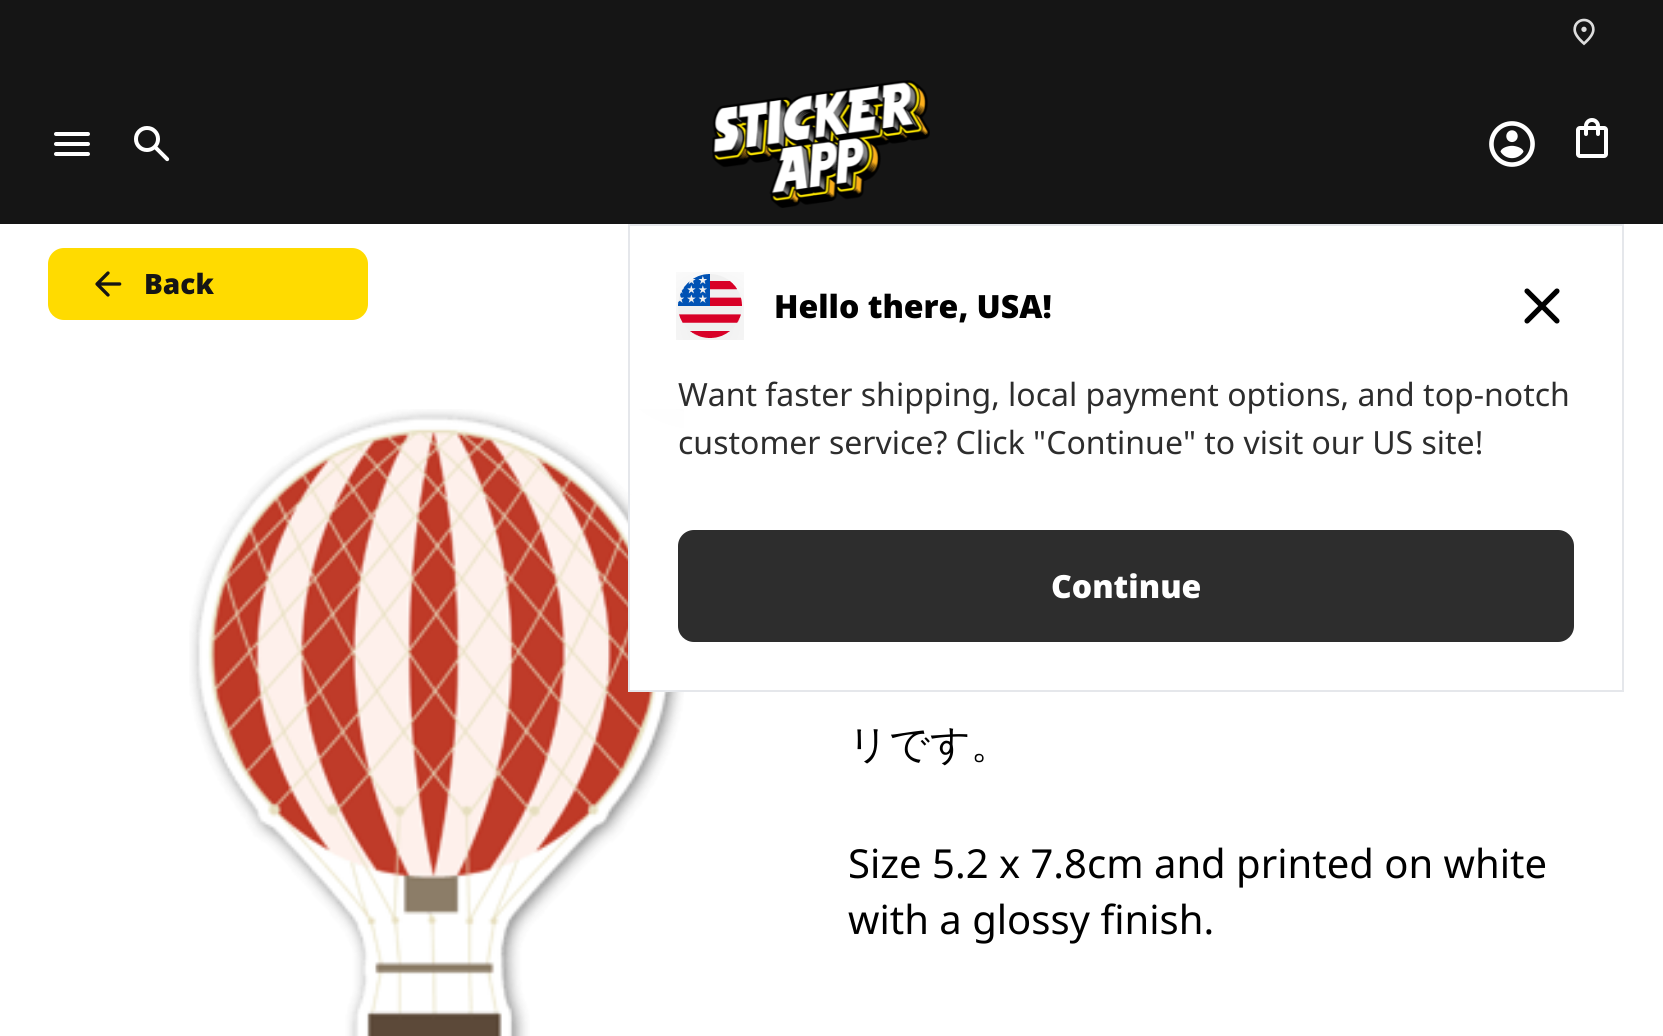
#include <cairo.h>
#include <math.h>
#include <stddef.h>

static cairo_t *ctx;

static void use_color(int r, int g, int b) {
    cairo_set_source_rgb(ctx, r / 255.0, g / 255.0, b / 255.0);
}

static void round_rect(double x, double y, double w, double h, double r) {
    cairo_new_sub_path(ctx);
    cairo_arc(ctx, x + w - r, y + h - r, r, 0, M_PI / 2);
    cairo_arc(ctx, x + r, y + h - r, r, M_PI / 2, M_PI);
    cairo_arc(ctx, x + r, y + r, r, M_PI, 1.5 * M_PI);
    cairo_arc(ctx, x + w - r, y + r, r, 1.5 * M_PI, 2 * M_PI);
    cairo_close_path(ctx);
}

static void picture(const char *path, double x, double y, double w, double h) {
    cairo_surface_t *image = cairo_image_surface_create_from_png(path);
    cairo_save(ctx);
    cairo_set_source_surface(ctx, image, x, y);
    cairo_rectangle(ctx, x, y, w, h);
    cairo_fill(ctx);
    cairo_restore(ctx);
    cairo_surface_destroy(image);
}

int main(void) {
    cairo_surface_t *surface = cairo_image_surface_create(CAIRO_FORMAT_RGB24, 1663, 1036);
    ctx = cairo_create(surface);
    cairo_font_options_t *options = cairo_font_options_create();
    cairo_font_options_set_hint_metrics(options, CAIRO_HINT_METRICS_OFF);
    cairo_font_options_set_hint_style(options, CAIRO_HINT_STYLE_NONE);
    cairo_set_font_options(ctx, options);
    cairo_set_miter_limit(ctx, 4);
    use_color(255, 255, 255);
    cairo_paint(ctx);
    use_color(21, 21, 21);
    cairo_rectangle(ctx, 0, 0, 1663, 224);
    cairo_fill(ctx);
    picture("img1.png", 1573, 18, 22, 28);
    picture("img2.png", 54, 132, 36, 24);
    picture("img3.png", 134, 126, 36, 36);
    picture("img4.png", 712, 80, 218, 128);
    picture("img5.png", 1489, 121, 46, 46);
    picture("img6.png", 1576, 118, 32, 40);
    use_color(255, 219, 0);
    round_rect(48, 248, 320, 72, 16);
    cairo_fill(ctx);
    picture("img7.png", 95, 271, 27, 26);
    cairo_select_font_face(ctx, "Noto Sans Black", CAIRO_FONT_SLANT_NORMAL, CAIRO_FONT_WEIGHT_NORMAL);
    cairo_set_font_size(ctx, 28);
    use_color(21, 21, 21);
    cairo_move_to(ctx, 144, 294);
    cairo_show_text(ctx, "Back");
    picture("img8.png", 189, 409, 495, 627);
    cairo_select_font_face(ctx, "WenQuanYi Zen Hei Medium", CAIRO_FONT_SLANT_NORMAL, CAIRO_FONT_WEIGHT_NORMAL);
    cairo_set_font_size(ctx, 40);
    use_color(0, 0, 0);
    cairo_move_to(ctx, 848, 758);
    cairo_show_text(ctx, "リです。");
    cairo_select_font_face(ctx, "Noto Sans", CAIRO_FONT_SLANT_NORMAL, CAIRO_FONT_WEIGHT_NORMAL);
    cairo_move_to(ctx, 848, 878);
    cairo_show_text(ctx, "Size 5.2 x 7.8cm and printed on white");
    cairo_move_to(ctx, 848, 934);
    cairo_show_text(ctx, "with a glossy finish.");
    use_color(255, 255, 255);
    cairo_rectangle(ctx, 630, 495, 54, 195);
    cairo_fill(ctx);
    cairo_rectangle(ctx, 629, 225, 994, 466);
    use_color(229, 231, 235);
    cairo_stroke(ctx);
    picture("img9.png", 676, 272, 68, 68);
    cairo_select_font_face(ctx, "Noto Sans Black", CAIRO_FONT_SLANT_NORMAL, CAIRO_FONT_WEIGHT_NORMAL);
    cairo_set_font_size(ctx, 32);
    use_color(0, 0, 0);
    cairo_move_to(ctx, 774, 318);
    cairo_show_text(ctx, "Hello there, USA!");
    picture("img10.png", 1524, 288, 36, 36);
    cairo_select_font_face(ctx, "Noto Sans", CAIRO_FONT_SLANT_NORMAL, CAIRO_FONT_WEIGHT_NORMAL);
    use_color(45, 45, 45);
    cairo_move_to(ctx, 678, 406);
    cairo_show_text(ctx, "Want faster shipping, local payment options, and top-notch");
    cairo_move_to(ctx, 678, 454);
    cairo_show_text(ctx, "customer service? Click \"Continue\" to visit our US site!");
    round_rect(678, 530, 896, 112, 16);
    cairo_fill(ctx);
    cairo_select_font_face(ctx, "Noto Sans Black", CAIRO_FONT_SLANT_NORMAL, CAIRO_FONT_WEIGHT_NORMAL);
    use_color(255, 255, 255);
    cairo_move_to(ctx, 1051, 598);
    cairo_show_text(ctx, "Continue");
    cairo_surface_write_to_png(surface, "result.png");
    cairo_font_options_destroy(options);
    cairo_destroy(ctx);
    cairo_surface_destroy(surface);
    return 0;
}
